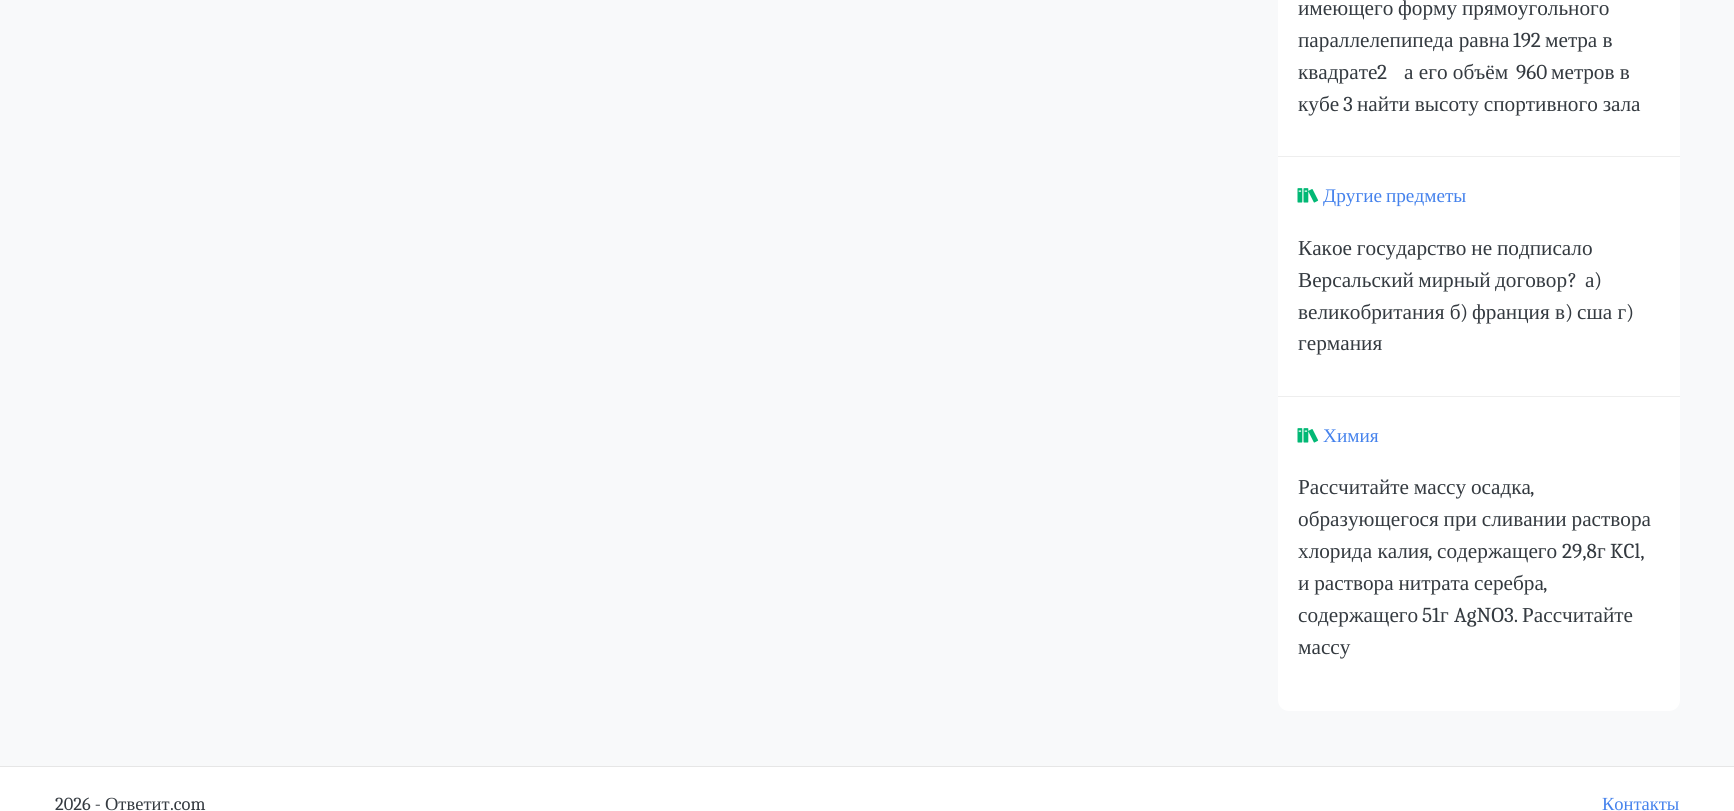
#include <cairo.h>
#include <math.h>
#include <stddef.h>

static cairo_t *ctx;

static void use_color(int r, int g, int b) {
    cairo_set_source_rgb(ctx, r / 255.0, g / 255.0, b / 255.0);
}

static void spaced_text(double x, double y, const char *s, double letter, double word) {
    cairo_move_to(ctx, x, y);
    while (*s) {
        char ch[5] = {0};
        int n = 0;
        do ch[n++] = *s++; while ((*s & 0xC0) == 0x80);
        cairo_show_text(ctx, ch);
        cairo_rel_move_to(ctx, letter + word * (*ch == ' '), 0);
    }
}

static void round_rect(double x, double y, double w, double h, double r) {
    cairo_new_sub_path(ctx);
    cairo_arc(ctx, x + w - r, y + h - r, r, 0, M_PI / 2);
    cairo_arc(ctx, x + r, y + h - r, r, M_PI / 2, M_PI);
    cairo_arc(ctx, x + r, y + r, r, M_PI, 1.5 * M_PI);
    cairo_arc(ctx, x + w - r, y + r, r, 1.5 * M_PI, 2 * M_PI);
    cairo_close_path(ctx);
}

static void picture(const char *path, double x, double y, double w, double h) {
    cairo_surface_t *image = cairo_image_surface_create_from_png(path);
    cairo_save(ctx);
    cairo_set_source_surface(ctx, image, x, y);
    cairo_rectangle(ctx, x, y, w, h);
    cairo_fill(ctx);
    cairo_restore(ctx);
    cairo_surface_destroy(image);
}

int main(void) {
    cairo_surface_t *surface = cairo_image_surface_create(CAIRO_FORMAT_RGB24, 1734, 811);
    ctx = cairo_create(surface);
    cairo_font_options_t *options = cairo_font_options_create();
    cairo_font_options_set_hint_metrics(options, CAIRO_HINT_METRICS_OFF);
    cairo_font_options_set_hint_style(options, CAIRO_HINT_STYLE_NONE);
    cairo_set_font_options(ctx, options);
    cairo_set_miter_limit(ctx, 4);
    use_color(255, 255, 255);
    cairo_paint(ctx);
    use_color(248, 249, 250);
    cairo_rectangle(ctx, 0, 0, 1734, 766);
    cairo_fill(ctx);
    use_color(255, 255, 255);
    round_rect(1278, -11, 402, 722, 11);
    cairo_fill(ctx);
    use_color(238, 238, 238);
    cairo_rectangle(ctx, 1278, 156, 402, 1);
    cairo_fill(ctx);
    cairo_select_font_face(ctx, "Liberation Serif", CAIRO_FONT_SLANT_NORMAL, CAIRO_FONT_WEIGHT_NORMAL);
    cairo_set_font_size(ctx, 21.25);
    use_color(52, 58, 64);
    spaced_text(1298, 15, "имеющего форму прямоугольного", 0, -0.5);
    cairo_move_to(ctx, 1298, 47);
    cairo_show_text(ctx, "параллелепипеда равна");
    cairo_select_font_face(ctx, "Caladea", CAIRO_FONT_SLANT_NORMAL, CAIRO_FONT_WEIGHT_NORMAL);
    cairo_move_to(ctx, 1513, 47);
    cairo_show_text(ctx, "192");
    cairo_select_font_face(ctx, "Liberation Serif", CAIRO_FONT_SLANT_NORMAL, CAIRO_FONT_WEIGHT_NORMAL);
    cairo_move_to(ctx, 1545, 47);
    cairo_show_text(ctx, "метра в");
    cairo_move_to(ctx, 1298, 79);
    cairo_show_text(ctx, "квадрате");
    cairo_select_font_face(ctx, "Caladea", CAIRO_FONT_SLANT_NORMAL, CAIRO_FONT_WEIGHT_NORMAL);
    cairo_move_to(ctx, 1377, 79);
    cairo_show_text(ctx, "2");
    cairo_select_font_face(ctx, "Liberation Serif", CAIRO_FONT_SLANT_NORMAL, CAIRO_FONT_WEIGHT_NORMAL);
    cairo_move_to(ctx, 1404, 79);
    cairo_show_text(ctx, "а его объём");
    cairo_select_font_face(ctx, "Caladea", CAIRO_FONT_SLANT_NORMAL, CAIRO_FONT_WEIGHT_NORMAL);
    cairo_move_to(ctx, 1516, 79);
    cairo_show_text(ctx, "960");
    cairo_select_font_face(ctx, "Liberation Serif", CAIRO_FONT_SLANT_NORMAL, CAIRO_FONT_WEIGHT_NORMAL);
    cairo_move_to(ctx, 1551, 79);
    cairo_show_text(ctx, "метров в");
    cairo_move_to(ctx, 1298, 111);
    cairo_show_text(ctx, "кубе");
    cairo_select_font_face(ctx, "Caladea", CAIRO_FONT_SLANT_NORMAL, CAIRO_FONT_WEIGHT_NORMAL);
    cairo_move_to(ctx, 1343, 111);
    cairo_show_text(ctx, "3");
    cairo_select_font_face(ctx, "Liberation Serif", CAIRO_FONT_SLANT_NORMAL, CAIRO_FONT_WEIGHT_NORMAL);
    spaced_text(1357, 111, "найти высоту спортивного зала", 0, -0.5);
    use_color(238, 238, 238);
    cairo_rectangle(ctx, 1278, 396, 402, 1);
    cairo_fill(ctx);
    picture("img1.png", 1297, 188, 22, 15);
    cairo_set_font_size(ctx, 19.25);
    use_color(69, 130, 236);
    spaced_text(1323, 202, "Другие предметы", 0, -1);
    cairo_set_font_size(ctx, 21.25);
    use_color(52, 58, 64);
    spaced_text(1298, 255, "Какое государство не подписало", 0, -0.5);
    spaced_text(1298, 287, "Версальский мирный договор", 0, -1);
    cairo_select_font_face(ctx, "Caladea", CAIRO_FONT_SLANT_NORMAL, CAIRO_FONT_WEIGHT_NORMAL);
    cairo_move_to(ctx, 1568, 287);
    cairo_show_text(ctx, "?");
    cairo_select_font_face(ctx, "Liberation Serif", CAIRO_FONT_SLANT_NORMAL, CAIRO_FONT_WEIGHT_NORMAL);
    cairo_move_to(ctx, 1585, 287);
    cairo_show_text(ctx, "а");
    cairo_select_font_face(ctx, "Caladea", CAIRO_FONT_SLANT_NORMAL, CAIRO_FONT_WEIGHT_NORMAL);
    cairo_move_to(ctx, 1594, 287);
    cairo_show_text(ctx, ")");
    cairo_select_font_face(ctx, "Liberation Serif", CAIRO_FONT_SLANT_NORMAL, CAIRO_FONT_WEIGHT_NORMAL);
    cairo_move_to(ctx, 1298, 319);
    cairo_show_text(ctx, "великобритания б");
    cairo_select_font_face(ctx, "Caladea", CAIRO_FONT_SLANT_NORMAL, CAIRO_FONT_WEIGHT_NORMAL);
    cairo_move_to(ctx, 1460, 319);
    cairo_show_text(ctx, ")");
    cairo_select_font_face(ctx, "Liberation Serif", CAIRO_FONT_SLANT_NORMAL, CAIRO_FONT_WEIGHT_NORMAL);
    cairo_move_to(ctx, 1472, 319);
    cairo_show_text(ctx, "франция в");
    cairo_select_font_face(ctx, "Caladea", CAIRO_FONT_SLANT_NORMAL, CAIRO_FONT_WEIGHT_NORMAL);
    cairo_move_to(ctx, 1565, 319);
    cairo_show_text(ctx, ")");
    cairo_select_font_face(ctx, "Liberation Serif", CAIRO_FONT_SLANT_NORMAL, CAIRO_FONT_WEIGHT_NORMAL);
    cairo_move_to(ctx, 1577, 319);
    cairo_show_text(ctx, "сша г");
    cairo_select_font_face(ctx, "Caladea", CAIRO_FONT_SLANT_NORMAL, CAIRO_FONT_WEIGHT_NORMAL);
    cairo_move_to(ctx, 1626, 319);
    cairo_show_text(ctx, ")");
    cairo_select_font_face(ctx, "Liberation Serif", CAIRO_FONT_SLANT_NORMAL, CAIRO_FONT_WEIGHT_NORMAL);
    cairo_move_to(ctx, 1298, 350);
    cairo_show_text(ctx, "германия");
    picture("img1.png", 1297, 428, 22, 15);
    cairo_set_font_size(ctx, 19.25);
    use_color(69, 130, 236);
    cairo_move_to(ctx, 1323, 442);
    cairo_show_text(ctx, "Химия");
    cairo_set_font_size(ctx, 21.25);
    use_color(52, 58, 64);
    spaced_text(1298, 494, "Рассчитайте массу осадка", 0, -0.5);
    cairo_select_font_face(ctx, "Caladea", CAIRO_FONT_SLANT_NORMAL, CAIRO_FONT_WEIGHT_NORMAL);
    cairo_move_to(ctx, 1530, 494);
    cairo_show_text(ctx, ",");
    cairo_select_font_face(ctx, "Liberation Serif", CAIRO_FONT_SLANT_NORMAL, CAIRO_FONT_WEIGHT_NORMAL);
    spaced_text(1298, 526, "образующегося при сливании раствора", 0, -0.5);
    cairo_move_to(ctx, 1298, 558);
    cairo_show_text(ctx, "хлорида калия");
    cairo_select_font_face(ctx, "Caladea", CAIRO_FONT_SLANT_NORMAL, CAIRO_FONT_WEIGHT_NORMAL);
    cairo_move_to(ctx, 1428, 558);
    cairo_show_text(ctx, ",");
    cairo_select_font_face(ctx, "Liberation Serif", CAIRO_FONT_SLANT_NORMAL, CAIRO_FONT_WEIGHT_NORMAL);
    cairo_move_to(ctx, 1437, 558);
    cairo_show_text(ctx, "содержащего");
    cairo_select_font_face(ctx, "Caladea", CAIRO_FONT_SLANT_NORMAL, CAIRO_FONT_WEIGHT_NORMAL);
    cairo_move_to(ctx, 1562, 558);
    cairo_show_text(ctx, "29,8");
    cairo_select_font_face(ctx, "Liberation Serif", CAIRO_FONT_SLANT_NORMAL, CAIRO_FONT_WEIGHT_NORMAL);
    cairo_move_to(ctx, 1597, 558);
    cairo_show_text(ctx, "г");
    cairo_select_font_face(ctx, "Caladea", CAIRO_FONT_SLANT_NORMAL, CAIRO_FONT_WEIGHT_NORMAL);
    cairo_move_to(ctx, 1610, 558);
    cairo_show_text(ctx, "KCl,");
    cairo_select_font_face(ctx, "Liberation Serif", CAIRO_FONT_SLANT_NORMAL, CAIRO_FONT_WEIGHT_NORMAL);
    spaced_text(1298, 590, "и раствора нитрата серебра", 0, -0.5);
    cairo_select_font_face(ctx, "Caladea", CAIRO_FONT_SLANT_NORMAL, CAIRO_FONT_WEIGHT_NORMAL);
    cairo_move_to(ctx, 1543, 590);
    cairo_show_text(ctx, ",");
    cairo_select_font_face(ctx, "Liberation Serif", CAIRO_FONT_SLANT_NORMAL, CAIRO_FONT_WEIGHT_NORMAL);
    cairo_move_to(ctx, 1298, 622);
    cairo_show_text(ctx, "содержащего");
    cairo_select_font_face(ctx, "Caladea", CAIRO_FONT_SLANT_NORMAL, CAIRO_FONT_WEIGHT_NORMAL);
    cairo_move_to(ctx, 1422, 622);
    cairo_show_text(ctx, "51");
    cairo_select_font_face(ctx, "Liberation Serif", CAIRO_FONT_SLANT_NORMAL, CAIRO_FONT_WEIGHT_NORMAL);
    cairo_move_to(ctx, 1440, 622);
    cairo_show_text(ctx, "г");
    cairo_select_font_face(ctx, "Caladea", CAIRO_FONT_SLANT_NORMAL, CAIRO_FONT_WEIGHT_NORMAL);
    cairo_move_to(ctx, 1454, 622);
    cairo_show_text(ctx, "AgNO3.");
    cairo_select_font_face(ctx, "Liberation Serif", CAIRO_FONT_SLANT_NORMAL, CAIRO_FONT_WEIGHT_NORMAL);
    cairo_move_to(ctx, 1522, 622);
    cairo_show_text(ctx, "Рассчитайте");
    cairo_move_to(ctx, 1298, 654);
    cairo_show_text(ctx, "массу");
    use_color(230, 230, 230);
    cairo_rectangle(ctx, 0, 766, 1734, 1);
    cairo_fill(ctx);
    cairo_select_font_face(ctx, "Caladea", CAIRO_FONT_SLANT_NORMAL, CAIRO_FONT_WEIGHT_NORMAL);
    cairo_set_font_size(ctx, 18.5);
    use_color(52, 58, 64);
    cairo_move_to(ctx, 55, 810);
    cairo_show_text(ctx, "2026 -");
    cairo_select_font_face(ctx, "Liberation Serif", CAIRO_FONT_SLANT_NORMAL, CAIRO_FONT_WEIGHT_NORMAL);
    cairo_move_to(ctx, 105, 810);
    cairo_show_text(ctx, "Ответит");
    cairo_select_font_face(ctx, "Caladea", CAIRO_FONT_SLANT_NORMAL, CAIRO_FONT_WEIGHT_NORMAL);
    cairo_move_to(ctx, 170, 810);
    cairo_show_text(ctx, ".com");
    cairo_select_font_face(ctx, "Liberation Serif", CAIRO_FONT_SLANT_NORMAL, CAIRO_FONT_WEIGHT_NORMAL);
    use_color(69, 130, 236);
    cairo_move_to(ctx, 1602, 810);
    cairo_show_text(ctx, "Контакты");
    cairo_surface_write_to_png(surface, "result.png");
    cairo_font_options_destroy(options);
    cairo_destroy(ctx);
    cairo_surface_destroy(surface);
    return 0;
}
